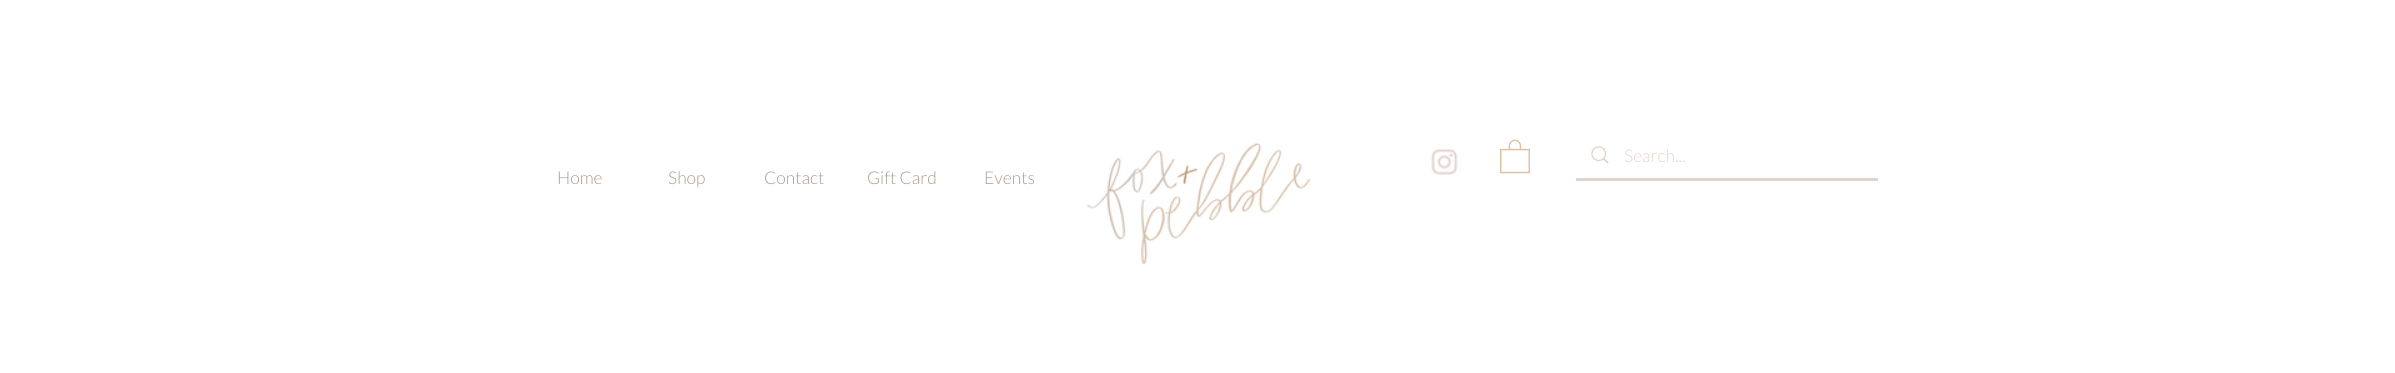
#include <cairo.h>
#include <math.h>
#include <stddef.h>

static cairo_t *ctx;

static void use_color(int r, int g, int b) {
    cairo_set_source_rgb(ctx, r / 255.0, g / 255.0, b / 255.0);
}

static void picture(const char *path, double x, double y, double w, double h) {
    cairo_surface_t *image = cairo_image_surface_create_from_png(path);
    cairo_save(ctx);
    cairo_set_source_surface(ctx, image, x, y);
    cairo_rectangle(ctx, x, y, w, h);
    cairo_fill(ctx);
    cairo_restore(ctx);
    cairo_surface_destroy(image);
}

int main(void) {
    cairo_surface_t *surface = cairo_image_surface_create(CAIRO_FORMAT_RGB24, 2395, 373);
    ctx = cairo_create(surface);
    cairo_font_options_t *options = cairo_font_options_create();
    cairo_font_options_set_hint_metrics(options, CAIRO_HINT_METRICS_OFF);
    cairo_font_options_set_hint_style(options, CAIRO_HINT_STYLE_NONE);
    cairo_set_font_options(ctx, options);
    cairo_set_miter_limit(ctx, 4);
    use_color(255, 255, 255);
    cairo_paint(ctx);
    picture("img1.png", 1086, 142, 225, 123);
    picture("img2.png", 1431, 148, 27, 27);
    picture("img3.png", 1500, 139, 30, 35);
    use_color(226, 212, 205);
    cairo_rectangle(ctx, 1576, 178, 302, 3);
    cairo_fill(ctx);
    picture("img4.png", 1591, 146, 18, 18);
    cairo_select_font_face(ctx, "Lato Light", CAIRO_FONT_SLANT_NORMAL, CAIRO_FONT_WEIGHT_NORMAL);
    cairo_set_font_size(ctx, 17.5);
    cairo_move_to(ctx, 1624, 162);
    cairo_show_text(ctx, "Search...");
    use_color(171, 157, 145);
    cairo_move_to(ctx, 557, 184);
    cairo_show_text(ctx, "Home");
    cairo_move_to(ctx, 668, 184);
    cairo_show_text(ctx, "Shop");
    cairo_move_to(ctx, 764, 184);
    cairo_show_text(ctx, "Contact");
    cairo_move_to(ctx, 867, 184);
    cairo_show_text(ctx, "Gift Card");
    cairo_move_to(ctx, 984, 184);
    cairo_show_text(ctx, "Events");
    cairo_surface_write_to_png(surface, "result.png");
    cairo_font_options_destroy(options);
    cairo_destroy(ctx);
    cairo_surface_destroy(surface);
    return 0;
}
